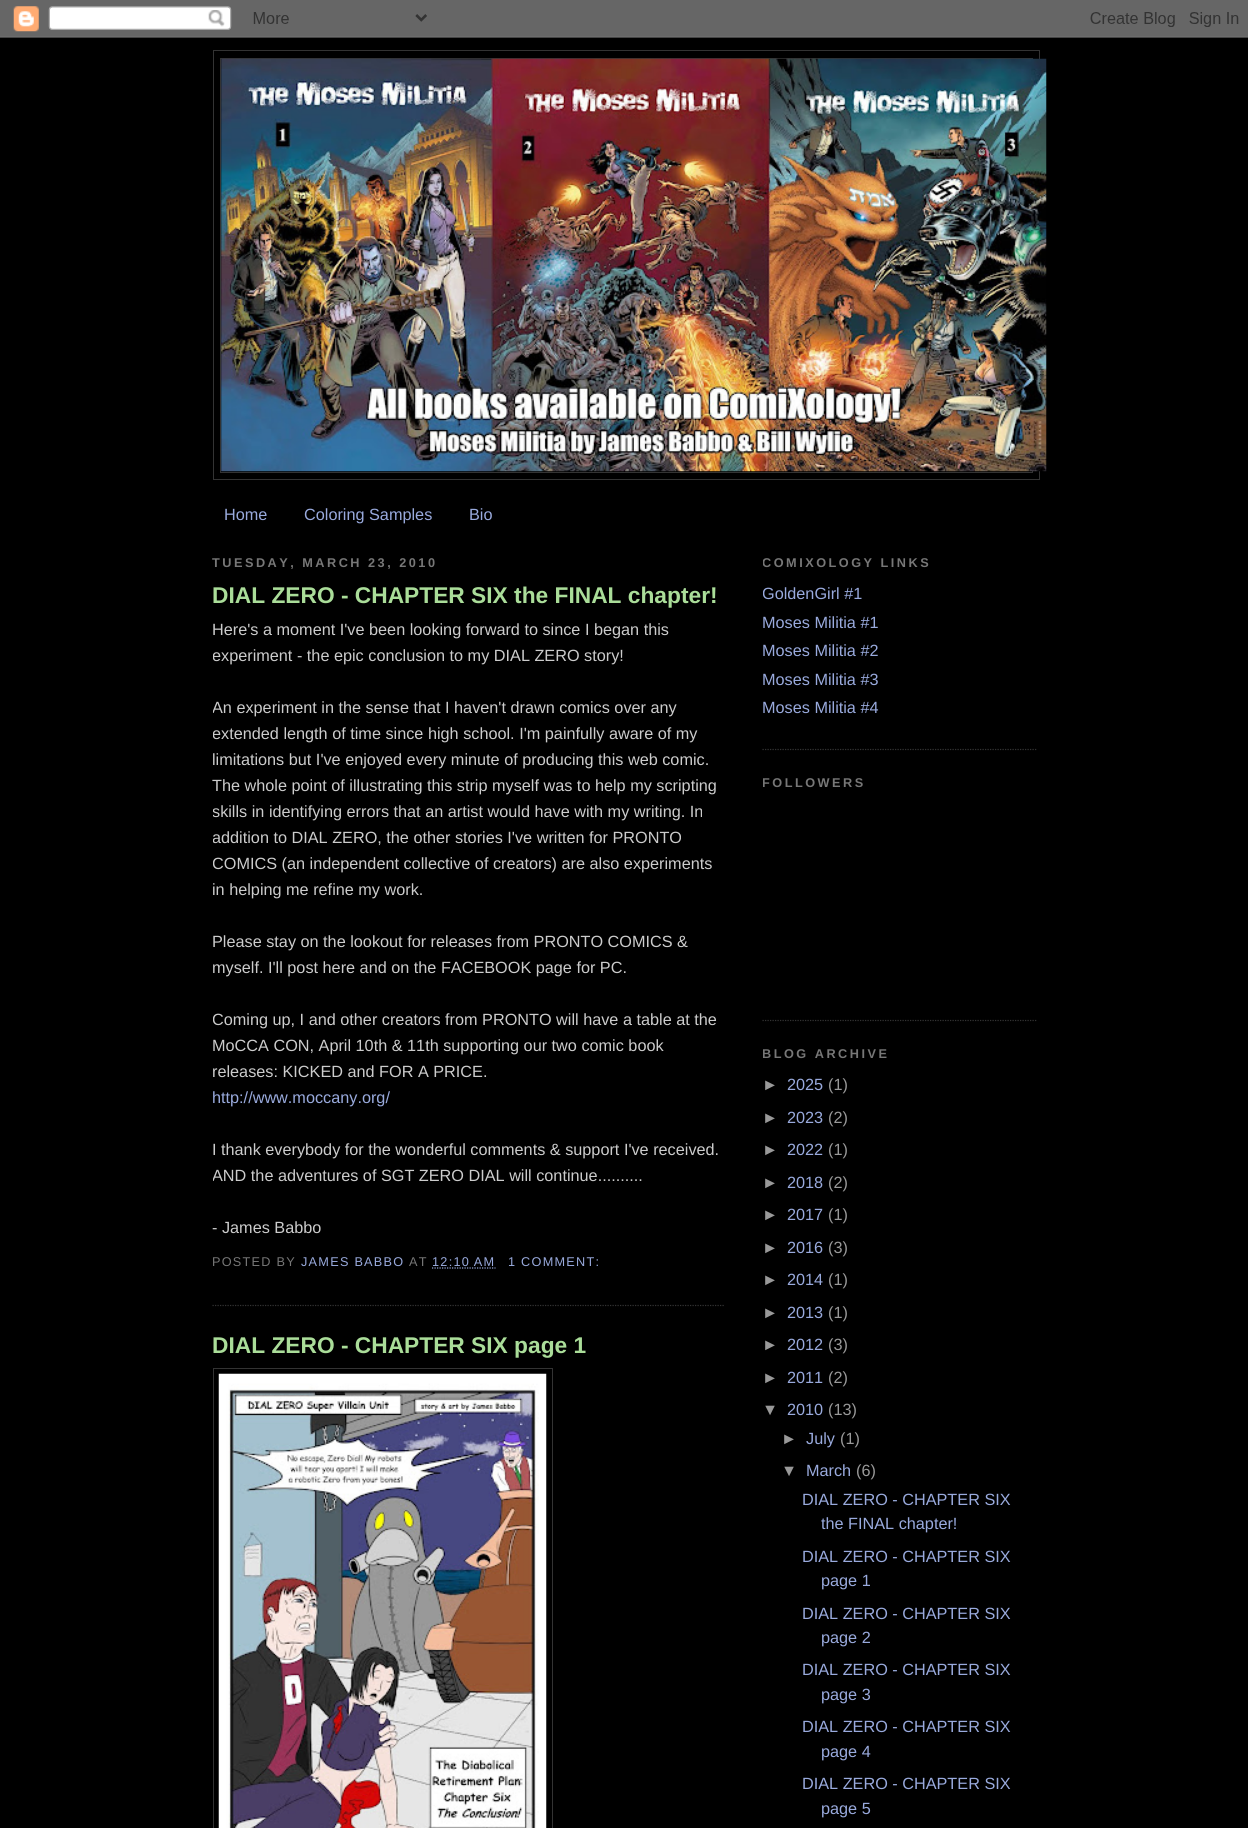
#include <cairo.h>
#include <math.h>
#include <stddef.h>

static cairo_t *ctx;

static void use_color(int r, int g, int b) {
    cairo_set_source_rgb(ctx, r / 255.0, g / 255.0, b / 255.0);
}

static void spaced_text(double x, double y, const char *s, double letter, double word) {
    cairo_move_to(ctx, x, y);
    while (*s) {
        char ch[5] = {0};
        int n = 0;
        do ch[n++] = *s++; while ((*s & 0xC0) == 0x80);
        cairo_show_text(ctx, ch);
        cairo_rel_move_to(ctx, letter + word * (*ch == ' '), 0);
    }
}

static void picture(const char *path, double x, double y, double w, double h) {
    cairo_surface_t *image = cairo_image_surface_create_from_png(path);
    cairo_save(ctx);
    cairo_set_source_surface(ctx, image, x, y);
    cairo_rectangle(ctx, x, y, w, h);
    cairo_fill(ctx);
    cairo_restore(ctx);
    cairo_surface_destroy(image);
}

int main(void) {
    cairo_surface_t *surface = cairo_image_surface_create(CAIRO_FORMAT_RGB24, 1248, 1828);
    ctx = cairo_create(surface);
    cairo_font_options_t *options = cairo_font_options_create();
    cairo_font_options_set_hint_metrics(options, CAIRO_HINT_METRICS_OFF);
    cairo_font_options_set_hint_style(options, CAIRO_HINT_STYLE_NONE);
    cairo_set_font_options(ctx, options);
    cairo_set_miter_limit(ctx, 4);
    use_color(0, 0, 0);
    cairo_paint(ctx);
    picture("img1.png", 0, 0, 1248, 38);
    cairo_rectangle(ctx, 213.5, 50.5, 826, 429);
    use_color(51, 51, 51);
    cairo_set_line_width(ctx, 1);
    cairo_stroke(ctx);
    cairo_rectangle(ctx, 220.5, 58.5, 812, 414);
    cairo_stroke(ctx);
    picture("img2.png", 221, 58, 826, 414);
    cairo_select_font_face(ctx, "Liberation Sans", CAIRO_FONT_SLANT_NORMAL, CAIRO_FONT_WEIGHT_NORMAL);
    cairo_set_font_size(ctx, 16.25);
    use_color(153, 170, 221);
    cairo_move_to(ctx, 224, 520);
    cairo_show_text(ctx, "Home");
    cairo_move_to(ctx, 304, 520);
    cairo_show_text(ctx, "Coloring Samples");
    cairo_move_to(ctx, 469, 520);
    cairo_show_text(ctx, "Bio");
    cairo_select_font_face(ctx, "Liberation Sans", CAIRO_FONT_SLANT_NORMAL, CAIRO_FONT_WEIGHT_BOLD);
    cairo_set_font_size(ctx, 12.7);
    use_color(119, 119, 119);
    spaced_text(212, 567, "TUESDAY, MARCH 23, 2010", 2.5, 0);
    cairo_new_path(ctx);
    cairo_move_to(ctx, 212.5, 1305.5);
    cairo_line_to(ctx, 725, 1305.5);
    use_color(51, 51, 51);
    cairo_set_line_width(ctx, 1.2);
    cairo_set_dash(ctx, (double[]){1.25, 1.25}, 2, 0);
    cairo_stroke(ctx);
    cairo_set_font_size(ctx, 22.75);
    use_color(170, 221, 153);
    cairo_move_to(ctx, 212, 603);
    cairo_show_text(ctx, "DIAL ZERO - CHAPTER SIX the FINAL chapter!");
    cairo_select_font_face(ctx, "Liberation Sans", CAIRO_FONT_SLANT_NORMAL, CAIRO_FONT_WEIGHT_NORMAL);
    cairo_set_font_size(ctx, 16.25);
    use_color(204, 204, 204);
    cairo_move_to(ctx, 212, 635);
    cairo_show_text(ctx, "Here's a moment I've been looking forward to since I began this");
    cairo_save(ctx);
    cairo_rectangle(ctx, 213, 536, 512, 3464);
    cairo_clip(ctx);
    cairo_move_to(ctx, 212, 661);
    cairo_show_text(ctx, "experiment - the epic conclusion to my DIAL ZERO story!");
    cairo_move_to(ctx, 212, 713);
    cairo_show_text(ctx, "An experiment in the sense that I haven't drawn comics over any");
    cairo_move_to(ctx, 212, 739);
    cairo_show_text(ctx, "extended length of time since high school. I'm painfully aware of my");
    cairo_restore(ctx);
    cairo_move_to(ctx, 212, 765);
    cairo_show_text(ctx, "limitations but I've enjoyed every minute of producing this web comic.");
    cairo_move_to(ctx, 212, 791);
    cairo_show_text(ctx, "The whole point of illustrating this strip myself was to help my scripting");
    cairo_save(ctx);
    cairo_rectangle(ctx, 213, 536, 512, 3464);
    cairo_clip(ctx);
    cairo_move_to(ctx, 212, 817);
    cairo_show_text(ctx, "skills in identifying errors that an artist would have with my writing. In");
    cairo_move_to(ctx, 212, 843);
    cairo_show_text(ctx, "addition to DIAL ZERO, the other stories I've written for PRONTO");
    cairo_move_to(ctx, 212, 869);
    cairo_show_text(ctx, "COMICS (an independent collective of creators) are also experiments");
    cairo_restore(ctx);
    cairo_move_to(ctx, 212, 895);
    cairo_show_text(ctx, "in helping me refine my work.");
    cairo_move_to(ctx, 212, 947);
    cairo_show_text(ctx, "Please stay on the lookout for releases from PRONTO COMICS &");
    cairo_move_to(ctx, 212, 973);
    cairo_show_text(ctx, "myself. I'll post here and on the FACEBOOK page for PC.");
    cairo_save(ctx);
    cairo_rectangle(ctx, 213, 536, 512, 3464);
    cairo_clip(ctx);
    cairo_move_to(ctx, 212, 1025);
    cairo_show_text(ctx, "Coming up, I and other creators from PRONTO will have a table at the");
    cairo_restore(ctx);
    cairo_move_to(ctx, 212, 1051);
    cairo_show_text(ctx, "MoCCA CON, April 10th & 11th supporting our two comic book");
    cairo_move_to(ctx, 212, 1077);
    cairo_show_text(ctx, "releases: KICKED and FOR A PRICE.");
    use_color(153, 170, 221);
    cairo_move_to(ctx, 212, 1103);
    cairo_show_text(ctx, "http://www.moccany.org/");
    use_color(204, 204, 204);
    cairo_move_to(ctx, 212, 1155);
    cairo_show_text(ctx, "I thank everybody for the wonderful comments & support I've received.");
    cairo_save(ctx);
    cairo_rectangle(ctx, 213, 536, 512, 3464);
    cairo_clip(ctx);
    cairo_move_to(ctx, 212, 1181);
    cairo_show_text(ctx, "AND the adventures of SGT ZERO DIAL will continue..........");
    cairo_restore(ctx);
    cairo_move_to(ctx, 212, 1233);
    cairo_show_text(ctx, "- James Babbo");
    cairo_save(ctx);
    cairo_rectangle(ctx, 213, 536, 512, 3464);
    cairo_clip(ctx);
    cairo_set_font_size(ctx, 12.7);
    use_color(119, 119, 119);
    spaced_text(212, 1266, "POSTED BY", 1.25, 0);
    cairo_restore(ctx);
    cairo_set_font_size(ctx, 12.7);
    use_color(153, 170, 221);
    spaced_text(301, 1266, "JAMES BABBO", 1.25, 0);
    use_color(119, 119, 119);
    spaced_text(409, 1266, "AT", 1.25, 0);
    use_color(153, 170, 221);
    spaced_text(432, 1266, "12:10 AM", 1.25, 0);
    cairo_new_path(ctx);
    cairo_move_to(ctx, 432, 1268);
    cairo_line_to(ctx, 495.5, 1268);
    cairo_stroke(ctx);
    spaced_text(508, 1266, "1 COMMENT:", 1.25, 0);
    cairo_select_font_face(ctx, "Liberation Sans", CAIRO_FONT_SLANT_NORMAL, CAIRO_FONT_WEIGHT_BOLD);
    cairo_set_font_size(ctx, 22.75);
    use_color(170, 221, 153);
    cairo_move_to(ctx, 212, 1353);
    cairo_show_text(ctx, "DIAL ZERO - CHAPTER SIX page 1");
    cairo_rectangle(ctx, 213.5, 1368.5, 339, 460);
    use_color(51, 51, 51);
    cairo_set_line_width(ctx, 1);
    cairo_set_dash(ctx, NULL, 0, 0);
    cairo_stroke(ctx);
    picture("img3.png", 218, 1373, 329, 455);
    cairo_new_path(ctx);
    cairo_move_to(ctx, 762.5, 749.5);
    cairo_line_to(ctx, 1037.5, 749.5);
    cairo_set_line_width(ctx, 1.2);
    cairo_set_dash(ctx, (double[]){1.25, 1.25}, 2, 0);
    cairo_stroke(ctx);
    cairo_save(ctx);
    cairo_rectangle(ctx, 763, 536, 275, 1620);
    cairo_clip(ctx);
    cairo_set_font_size(ctx, 12.7);
    use_color(119, 119, 119);
    spaced_text(762, 567, "COMIXOLOGY LINKS", 2.5, 0);
    cairo_select_font_face(ctx, "Liberation Sans", CAIRO_FONT_SLANT_NORMAL, CAIRO_FONT_WEIGHT_NORMAL);
    cairo_set_font_size(ctx, 16.25);
    use_color(153, 170, 221);
    cairo_move_to(ctx, 762, 599);
    cairo_show_text(ctx, "GoldenGirl #1");
    cairo_restore(ctx);
    cairo_select_font_face(ctx, "Liberation Sans", CAIRO_FONT_SLANT_NORMAL, CAIRO_FONT_WEIGHT_NORMAL);
    cairo_set_font_size(ctx, 16.25);
    use_color(153, 170, 221);
    cairo_move_to(ctx, 762, 628);
    cairo_show_text(ctx, "Moses Militia #1");
    cairo_move_to(ctx, 762, 656);
    cairo_show_text(ctx, "Moses Militia #2");
    cairo_move_to(ctx, 762, 685);
    cairo_show_text(ctx, "Moses Militia #3");
    cairo_move_to(ctx, 762, 713);
    cairo_show_text(ctx, "Moses Militia #4");
    cairo_new_path(ctx);
    cairo_move_to(ctx, 762.5, 1020.5);
    cairo_line_to(ctx, 1037.5, 1020.5);
    use_color(51, 51, 51);
    cairo_stroke(ctx);
    cairo_save(ctx);
    cairo_rectangle(ctx, 763, 536, 275, 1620);
    cairo_clip(ctx);
    cairo_select_font_face(ctx, "Liberation Sans", CAIRO_FONT_SLANT_NORMAL, CAIRO_FONT_WEIGHT_BOLD);
    cairo_set_font_size(ctx, 12.7);
    use_color(119, 119, 119);
    spaced_text(762, 787, "FOLLOWERS", 2.5, 0);
    spaced_text(762, 1058, "BLOG ARCHIVE", 2.5, 0);
    cairo_restore(ctx);
    use_color(153, 153, 153);
    cairo_move_to(ctx, 762, 1090);
    cairo_show_text(ctx, "►");
    use_color(153, 170, 221);
    cairo_move_to(ctx, 787, 1090);
    cairo_show_text(ctx, "2025");
    use_color(153, 153, 153);
    cairo_move_to(ctx, 828, 1090);
    cairo_show_text(ctx, "(1)");
    cairo_move_to(ctx, 762, 1123);
    cairo_show_text(ctx, "►");
    use_color(153, 170, 221);
    cairo_move_to(ctx, 787, 1123);
    cairo_show_text(ctx, "2023");
    use_color(153, 153, 153);
    cairo_move_to(ctx, 828, 1123);
    cairo_show_text(ctx, "(2)");
    cairo_move_to(ctx, 762, 1155);
    cairo_show_text(ctx, "►");
    use_color(153, 170, 221);
    cairo_move_to(ctx, 787, 1155);
    cairo_show_text(ctx, "2022");
    use_color(153, 153, 153);
    cairo_move_to(ctx, 828, 1155);
    cairo_show_text(ctx, "(1)");
    cairo_move_to(ctx, 762, 1188);
    cairo_show_text(ctx, "►");
    use_color(153, 170, 221);
    cairo_move_to(ctx, 787, 1188);
    cairo_show_text(ctx, "2018");
    use_color(153, 153, 153);
    cairo_move_to(ctx, 828, 1188);
    cairo_show_text(ctx, "(2)");
    cairo_move_to(ctx, 762, 1220);
    cairo_show_text(ctx, "►");
    use_color(153, 170, 221);
    cairo_move_to(ctx, 787, 1220);
    cairo_show_text(ctx, "2017");
    use_color(153, 153, 153);
    cairo_move_to(ctx, 828, 1220);
    cairo_show_text(ctx, "(1)");
    cairo_move_to(ctx, 762, 1253);
    cairo_show_text(ctx, "►");
    use_color(153, 170, 221);
    cairo_move_to(ctx, 787, 1253);
    cairo_show_text(ctx, "2016");
    use_color(153, 153, 153);
    cairo_move_to(ctx, 828, 1253);
    cairo_show_text(ctx, "(3)");
    cairo_move_to(ctx, 762, 1285);
    cairo_show_text(ctx, "►");
    use_color(153, 170, 221);
    cairo_move_to(ctx, 787, 1285);
    cairo_show_text(ctx, "2014");
    use_color(153, 153, 153);
    cairo_move_to(ctx, 828, 1285);
    cairo_show_text(ctx, "(1)");
    cairo_move_to(ctx, 762, 1318);
    cairo_show_text(ctx, "►");
    use_color(153, 170, 221);
    cairo_move_to(ctx, 787, 1318);
    cairo_show_text(ctx, "2013");
    use_color(153, 153, 153);
    cairo_move_to(ctx, 828, 1318);
    cairo_show_text(ctx, "(1)");
    cairo_move_to(ctx, 762, 1350);
    cairo_show_text(ctx, "►");
    use_color(153, 170, 221);
    cairo_move_to(ctx, 787, 1350);
    cairo_show_text(ctx, "2012");
    use_color(153, 153, 153);
    cairo_move_to(ctx, 828, 1350);
    cairo_show_text(ctx, "(3)");
    cairo_move_to(ctx, 762, 1383);
    cairo_show_text(ctx, "►");
    use_color(153, 170, 221);
    cairo_move_to(ctx, 787, 1383);
    cairo_show_text(ctx, "2011");
    use_color(153, 153, 153);
    cairo_move_to(ctx, 828, 1383);
    cairo_show_text(ctx, "(2)");
    cairo_move_to(ctx, 762, 1415);
    cairo_show_text(ctx, "▼");
    use_color(153, 170, 221);
    cairo_move_to(ctx, 787, 1415);
    cairo_show_text(ctx, "2010");
    use_color(153, 153, 153);
    cairo_move_to(ctx, 828, 1415);
    cairo_show_text(ctx, "(13)");
    cairo_move_to(ctx, 781, 1444);
    cairo_show_text(ctx, "►");
    use_color(153, 170, 221);
    cairo_move_to(ctx, 806, 1444);
    cairo_show_text(ctx, "July");
    use_color(153, 153, 153);
    cairo_move_to(ctx, 840, 1444);
    cairo_show_text(ctx, "(1)");
    cairo_move_to(ctx, 781, 1476);
    cairo_show_text(ctx, "▼");
    use_color(153, 170, 221);
    cairo_move_to(ctx, 806, 1476);
    cairo_show_text(ctx, "March");
    use_color(153, 153, 153);
    cairo_move_to(ctx, 856, 1476);
    cairo_show_text(ctx, "(6)");
    use_color(153, 170, 221);
    cairo_move_to(ctx, 802, 1505);
    cairo_show_text(ctx, "DIAL ZERO - CHAPTER SIX");
    cairo_move_to(ctx, 821, 1529);
    cairo_show_text(ctx, "the FINAL chapter!");
    cairo_move_to(ctx, 802, 1562);
    cairo_show_text(ctx, "DIAL ZERO - CHAPTER SIX");
    cairo_move_to(ctx, 821, 1586);
    cairo_show_text(ctx, "page 1");
    cairo_move_to(ctx, 802, 1619);
    cairo_show_text(ctx, "DIAL ZERO - CHAPTER SIX");
    cairo_move_to(ctx, 821, 1643);
    cairo_show_text(ctx, "page 2");
    cairo_move_to(ctx, 802, 1675);
    cairo_show_text(ctx, "DIAL ZERO - CHAPTER SIX");
    cairo_move_to(ctx, 821, 1700);
    cairo_show_text(ctx, "page 3");
    cairo_move_to(ctx, 802, 1732);
    cairo_show_text(ctx, "DIAL ZERO - CHAPTER SIX");
    cairo_move_to(ctx, 821, 1757);
    cairo_show_text(ctx, "page 4");
    cairo_move_to(ctx, 802, 1789);
    cairo_show_text(ctx, "DIAL ZERO - CHAPTER SIX");
    cairo_move_to(ctx, 821, 1814);
    cairo_show_text(ctx, "page 5");
    cairo_surface_write_to_png(surface, "result.png");
    cairo_font_options_destroy(options);
    cairo_destroy(ctx);
    cairo_surface_destroy(surface);
    return 0;
}
